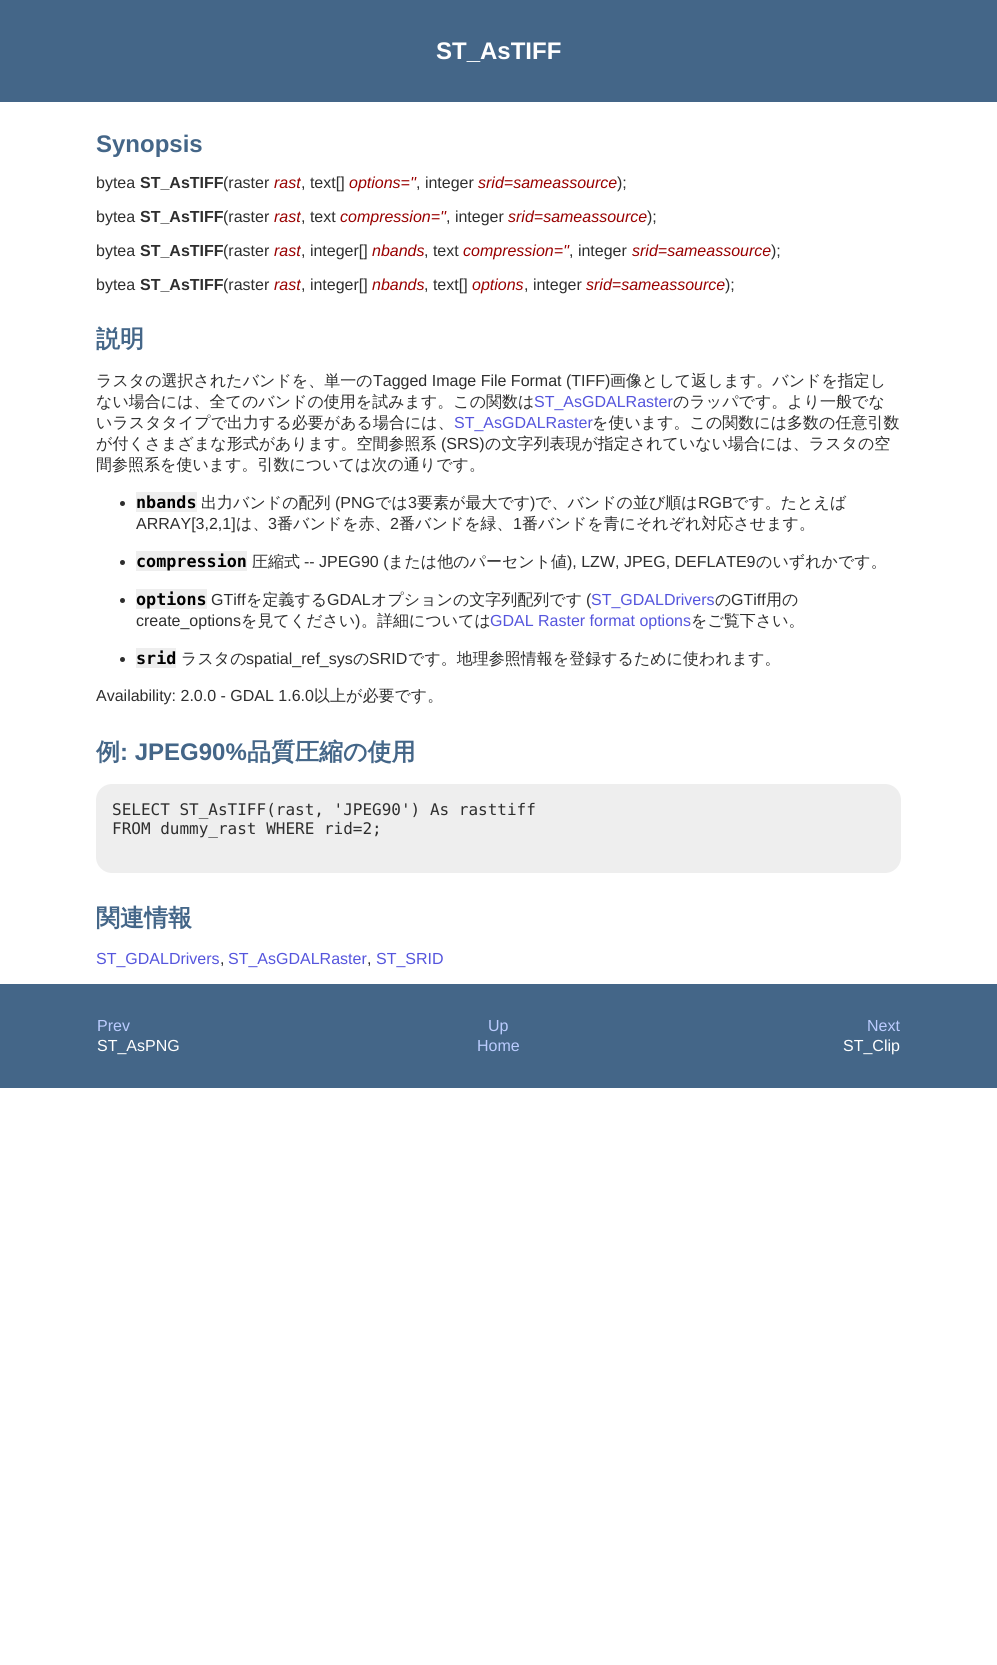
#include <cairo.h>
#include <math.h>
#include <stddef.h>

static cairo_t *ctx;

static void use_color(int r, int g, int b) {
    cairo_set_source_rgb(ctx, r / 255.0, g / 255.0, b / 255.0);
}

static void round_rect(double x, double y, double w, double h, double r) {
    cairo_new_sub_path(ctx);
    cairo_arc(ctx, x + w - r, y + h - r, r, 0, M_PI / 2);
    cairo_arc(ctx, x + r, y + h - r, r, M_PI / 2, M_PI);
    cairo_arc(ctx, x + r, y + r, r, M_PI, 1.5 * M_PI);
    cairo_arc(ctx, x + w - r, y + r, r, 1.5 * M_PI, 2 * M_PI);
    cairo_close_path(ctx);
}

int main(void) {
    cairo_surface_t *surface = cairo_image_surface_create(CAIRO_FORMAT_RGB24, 997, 1665);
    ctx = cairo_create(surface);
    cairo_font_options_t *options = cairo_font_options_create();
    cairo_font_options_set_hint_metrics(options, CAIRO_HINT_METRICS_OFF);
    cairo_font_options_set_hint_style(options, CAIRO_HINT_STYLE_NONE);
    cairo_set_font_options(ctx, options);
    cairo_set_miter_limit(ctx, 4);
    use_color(255, 255, 255);
    cairo_paint(ctx);
    use_color(68, 102, 136);
    cairo_rectangle(ctx, 0, 0, 997, 102);
    cairo_fill(ctx);
    cairo_select_font_face(ctx, "Liberation Sans", CAIRO_FONT_SLANT_NORMAL, CAIRO_FONT_WEIGHT_BOLD);
    cairo_set_font_size(ctx, 24);
    use_color(255, 255, 255);
    cairo_move_to(ctx, 436, 59);
    cairo_show_text(ctx, "ST_AsTIFF");
    use_color(68, 102, 136);
    cairo_move_to(ctx, 96, 152);
    cairo_show_text(ctx, "Synopsis");
    cairo_select_font_face(ctx, "Liberation Sans", CAIRO_FONT_SLANT_NORMAL, CAIRO_FONT_WEIGHT_NORMAL);
    cairo_set_font_size(ctx, 16);
    use_color(46, 46, 46);
    cairo_move_to(ctx, 96, 188);
    cairo_show_text(ctx, "bytea");
    cairo_select_font_face(ctx, "Liberation Sans", CAIRO_FONT_SLANT_NORMAL, CAIRO_FONT_WEIGHT_BOLD);
    cairo_move_to(ctx, 140, 188);
    cairo_show_text(ctx, "ST_AsTIFF");
    cairo_select_font_face(ctx, "Liberation Sans", CAIRO_FONT_SLANT_NORMAL, CAIRO_FONT_WEIGHT_NORMAL);
    cairo_move_to(ctx, 223, 188);
    cairo_show_text(ctx, "(raster");
    cairo_select_font_face(ctx, "Liberation Sans", CAIRO_FONT_SLANT_ITALIC, CAIRO_FONT_WEIGHT_NORMAL);
    use_color(153, 0, 0);
    cairo_move_to(ctx, 274, 188);
    cairo_show_text(ctx, "rast");
    cairo_select_font_face(ctx, "Liberation Sans", CAIRO_FONT_SLANT_NORMAL, CAIRO_FONT_WEIGHT_NORMAL);
    use_color(46, 46, 46);
    cairo_move_to(ctx, 301, 188);
    cairo_show_text(ctx, ", text[]");
    cairo_select_font_face(ctx, "Liberation Sans", CAIRO_FONT_SLANT_ITALIC, CAIRO_FONT_WEIGHT_NORMAL);
    use_color(153, 0, 0);
    cairo_move_to(ctx, 349, 188);
    cairo_show_text(ctx, "options=''");
    cairo_select_font_face(ctx, "Liberation Sans", CAIRO_FONT_SLANT_NORMAL, CAIRO_FONT_WEIGHT_NORMAL);
    use_color(46, 46, 46);
    cairo_move_to(ctx, 416, 188);
    cairo_show_text(ctx, ", integer");
    cairo_select_font_face(ctx, "Liberation Sans", CAIRO_FONT_SLANT_ITALIC, CAIRO_FONT_WEIGHT_NORMAL);
    use_color(153, 0, 0);
    cairo_move_to(ctx, 478, 188);
    cairo_show_text(ctx, "srid=sameassource");
    cairo_select_font_face(ctx, "Liberation Sans", CAIRO_FONT_SLANT_NORMAL, CAIRO_FONT_WEIGHT_NORMAL);
    use_color(46, 46, 46);
    cairo_move_to(ctx, 617, 188);
    cairo_show_text(ctx, ");");
    cairo_move_to(ctx, 96, 222);
    cairo_show_text(ctx, "bytea");
    cairo_select_font_face(ctx, "Liberation Sans", CAIRO_FONT_SLANT_NORMAL, CAIRO_FONT_WEIGHT_BOLD);
    cairo_move_to(ctx, 140, 222);
    cairo_show_text(ctx, "ST_AsTIFF");
    cairo_select_font_face(ctx, "Liberation Sans", CAIRO_FONT_SLANT_NORMAL, CAIRO_FONT_WEIGHT_NORMAL);
    cairo_move_to(ctx, 223, 222);
    cairo_show_text(ctx, "(raster");
    cairo_select_font_face(ctx, "Liberation Sans", CAIRO_FONT_SLANT_ITALIC, CAIRO_FONT_WEIGHT_NORMAL);
    use_color(153, 0, 0);
    cairo_move_to(ctx, 274, 222);
    cairo_show_text(ctx, "rast");
    cairo_select_font_face(ctx, "Liberation Sans", CAIRO_FONT_SLANT_NORMAL, CAIRO_FONT_WEIGHT_NORMAL);
    use_color(46, 46, 46);
    cairo_move_to(ctx, 301, 222);
    cairo_show_text(ctx, ", text");
    cairo_select_font_face(ctx, "Liberation Sans", CAIRO_FONT_SLANT_ITALIC, CAIRO_FONT_WEIGHT_NORMAL);
    use_color(153, 0, 0);
    cairo_move_to(ctx, 340, 222);
    cairo_show_text(ctx, "compression=''");
    cairo_select_font_face(ctx, "Liberation Sans", CAIRO_FONT_SLANT_NORMAL, CAIRO_FONT_WEIGHT_NORMAL);
    use_color(46, 46, 46);
    cairo_move_to(ctx, 446, 222);
    cairo_show_text(ctx, ", integer");
    cairo_select_font_face(ctx, "Liberation Sans", CAIRO_FONT_SLANT_ITALIC, CAIRO_FONT_WEIGHT_NORMAL);
    use_color(153, 0, 0);
    cairo_move_to(ctx, 508, 222);
    cairo_show_text(ctx, "srid=sameassource");
    cairo_select_font_face(ctx, "Liberation Sans", CAIRO_FONT_SLANT_NORMAL, CAIRO_FONT_WEIGHT_NORMAL);
    use_color(46, 46, 46);
    cairo_move_to(ctx, 647, 222);
    cairo_show_text(ctx, ");");
    cairo_move_to(ctx, 96, 256);
    cairo_show_text(ctx, "bytea");
    cairo_select_font_face(ctx, "Liberation Sans", CAIRO_FONT_SLANT_NORMAL, CAIRO_FONT_WEIGHT_BOLD);
    cairo_move_to(ctx, 140, 256);
    cairo_show_text(ctx, "ST_AsTIFF");
    cairo_select_font_face(ctx, "Liberation Sans", CAIRO_FONT_SLANT_NORMAL, CAIRO_FONT_WEIGHT_NORMAL);
    cairo_move_to(ctx, 223, 256);
    cairo_show_text(ctx, "(raster");
    cairo_select_font_face(ctx, "Liberation Sans", CAIRO_FONT_SLANT_ITALIC, CAIRO_FONT_WEIGHT_NORMAL);
    use_color(153, 0, 0);
    cairo_move_to(ctx, 274, 256);
    cairo_show_text(ctx, "rast");
    cairo_select_font_face(ctx, "Liberation Sans", CAIRO_FONT_SLANT_NORMAL, CAIRO_FONT_WEIGHT_NORMAL);
    use_color(46, 46, 46);
    cairo_move_to(ctx, 301, 256);
    cairo_show_text(ctx, ", integer[]");
    cairo_select_font_face(ctx, "Liberation Sans", CAIRO_FONT_SLANT_ITALIC, CAIRO_FONT_WEIGHT_NORMAL);
    use_color(153, 0, 0);
    cairo_move_to(ctx, 372, 256);
    cairo_show_text(ctx, "nbands");
    cairo_select_font_face(ctx, "Liberation Sans", CAIRO_FONT_SLANT_NORMAL, CAIRO_FONT_WEIGHT_NORMAL);
    use_color(46, 46, 46);
    cairo_move_to(ctx, 424, 256);
    cairo_show_text(ctx, ", text");
    cairo_select_font_face(ctx, "Liberation Sans", CAIRO_FONT_SLANT_ITALIC, CAIRO_FONT_WEIGHT_NORMAL);
    use_color(153, 0, 0);
    cairo_move_to(ctx, 463, 256);
    cairo_show_text(ctx, "compression=''");
    cairo_select_font_face(ctx, "Liberation Sans", CAIRO_FONT_SLANT_NORMAL, CAIRO_FONT_WEIGHT_NORMAL);
    use_color(46, 46, 46);
    cairo_move_to(ctx, 569, 256);
    cairo_show_text(ctx, ", integer");
    cairo_select_font_face(ctx, "Liberation Sans", CAIRO_FONT_SLANT_ITALIC, CAIRO_FONT_WEIGHT_NORMAL);
    use_color(153, 0, 0);
    cairo_move_to(ctx, 632, 256);
    cairo_show_text(ctx, "srid=sameassource");
    cairo_select_font_face(ctx, "Liberation Sans", CAIRO_FONT_SLANT_NORMAL, CAIRO_FONT_WEIGHT_NORMAL);
    use_color(46, 46, 46);
    cairo_move_to(ctx, 771, 256);
    cairo_show_text(ctx, ");");
    cairo_move_to(ctx, 96, 290);
    cairo_show_text(ctx, "bytea");
    cairo_select_font_face(ctx, "Liberation Sans", CAIRO_FONT_SLANT_NORMAL, CAIRO_FONT_WEIGHT_BOLD);
    cairo_move_to(ctx, 140, 290);
    cairo_show_text(ctx, "ST_AsTIFF");
    cairo_select_font_face(ctx, "Liberation Sans", CAIRO_FONT_SLANT_NORMAL, CAIRO_FONT_WEIGHT_NORMAL);
    cairo_move_to(ctx, 223, 290);
    cairo_show_text(ctx, "(raster");
    cairo_select_font_face(ctx, "Liberation Sans", CAIRO_FONT_SLANT_ITALIC, CAIRO_FONT_WEIGHT_NORMAL);
    use_color(153, 0, 0);
    cairo_move_to(ctx, 274, 290);
    cairo_show_text(ctx, "rast");
    cairo_select_font_face(ctx, "Liberation Sans", CAIRO_FONT_SLANT_NORMAL, CAIRO_FONT_WEIGHT_NORMAL);
    use_color(46, 46, 46);
    cairo_move_to(ctx, 301, 290);
    cairo_show_text(ctx, ", integer[]");
    cairo_select_font_face(ctx, "Liberation Sans", CAIRO_FONT_SLANT_ITALIC, CAIRO_FONT_WEIGHT_NORMAL);
    use_color(153, 0, 0);
    cairo_move_to(ctx, 372, 290);
    cairo_show_text(ctx, "nbands");
    cairo_select_font_face(ctx, "Liberation Sans", CAIRO_FONT_SLANT_NORMAL, CAIRO_FONT_WEIGHT_NORMAL);
    use_color(46, 46, 46);
    cairo_move_to(ctx, 424, 290);
    cairo_show_text(ctx, ", text[]");
    cairo_select_font_face(ctx, "Liberation Sans", CAIRO_FONT_SLANT_ITALIC, CAIRO_FONT_WEIGHT_NORMAL);
    use_color(153, 0, 0);
    cairo_move_to(ctx, 472, 290);
    cairo_show_text(ctx, "options");
    cairo_select_font_face(ctx, "Liberation Sans", CAIRO_FONT_SLANT_NORMAL, CAIRO_FONT_WEIGHT_NORMAL);
    use_color(46, 46, 46);
    cairo_move_to(ctx, 524, 290);
    cairo_show_text(ctx, ", integer");
    cairo_select_font_face(ctx, "Liberation Sans", CAIRO_FONT_SLANT_ITALIC, CAIRO_FONT_WEIGHT_NORMAL);
    use_color(153, 0, 0);
    cairo_move_to(ctx, 586, 290);
    cairo_show_text(ctx, "srid=sameassource");
    cairo_select_font_face(ctx, "Liberation Sans", CAIRO_FONT_SLANT_NORMAL, CAIRO_FONT_WEIGHT_NORMAL);
    use_color(46, 46, 46);
    cairo_move_to(ctx, 725, 290);
    cairo_show_text(ctx, ");");
    cairo_select_font_face(ctx, "WenQuanYi Zen Hei", CAIRO_FONT_SLANT_NORMAL, CAIRO_FONT_WEIGHT_BOLD);
    cairo_set_font_size(ctx, 24);
    use_color(68, 102, 136);
    cairo_move_to(ctx, 96, 347);
    cairo_show_text(ctx, "説明");
    cairo_select_font_face(ctx, "WenQuanYi Zen Hei Medium", CAIRO_FONT_SLANT_NORMAL, CAIRO_FONT_WEIGHT_NORMAL);
    cairo_set_font_size(ctx, 16);
    use_color(46, 46, 46);
    cairo_move_to(ctx, 96, 386);
    cairo_show_text(ctx, "ラスタの選択されたバンドを、単一の");
    cairo_select_font_face(ctx, "Liberation Sans", CAIRO_FONT_SLANT_NORMAL, CAIRO_FONT_WEIGHT_NORMAL);
    cairo_move_to(ctx, 373, 386);
    cairo_show_text(ctx, "Tagged Image File Format (TIFF)");
    cairo_select_font_face(ctx, "WenQuanYi Zen Hei Medium", CAIRO_FONT_SLANT_NORMAL, CAIRO_FONT_WEIGHT_NORMAL);
    cairo_move_to(ctx, 610, 386);
    cairo_show_text(ctx, "画像として返します。バンドを指定し");
    cairo_move_to(ctx, 96, 407);
    cairo_show_text(ctx, "ない場合には、全てのバンドの使用を試みます。この関数は");
    cairo_select_font_face(ctx, "Liberation Sans", CAIRO_FONT_SLANT_NORMAL, CAIRO_FONT_WEIGHT_NORMAL);
    use_color(85, 85, 221);
    cairo_move_to(ctx, 534, 407);
    cairo_show_text(ctx, "ST_AsGDALRaster");
    cairo_select_font_face(ctx, "WenQuanYi Zen Hei Medium", CAIRO_FONT_SLANT_NORMAL, CAIRO_FONT_WEIGHT_NORMAL);
    use_color(46, 46, 46);
    cairo_move_to(ctx, 673, 407);
    cairo_show_text(ctx, "のラッパです。より一般でな");
    cairo_move_to(ctx, 96, 428);
    cairo_show_text(ctx, "いラスタタイプで出力する必要がある場合には、");
    cairo_select_font_face(ctx, "Liberation Sans", CAIRO_FONT_SLANT_NORMAL, CAIRO_FONT_WEIGHT_NORMAL);
    use_color(85, 85, 221);
    cairo_move_to(ctx, 454, 428);
    cairo_show_text(ctx, "ST_AsGDALRaster");
    cairo_select_font_face(ctx, "WenQuanYi Zen Hei Medium", CAIRO_FONT_SLANT_NORMAL, CAIRO_FONT_WEIGHT_NORMAL);
    use_color(46, 46, 46);
    cairo_move_to(ctx, 592, 428);
    cairo_show_text(ctx, "を使います。この関数には多数の任意引数");
    cairo_move_to(ctx, 96, 449);
    cairo_show_text(ctx, "が付くさまざまな形式があります。空間参照系");
    cairo_select_font_face(ctx, "Liberation Sans", CAIRO_FONT_SLANT_NORMAL, CAIRO_FONT_WEIGHT_NORMAL);
    cairo_move_to(ctx, 441, 449);
    cairo_show_text(ctx, "(SRS)");
    cairo_select_font_face(ctx, "WenQuanYi Zen Hei Medium", CAIRO_FONT_SLANT_NORMAL, CAIRO_FONT_WEIGHT_NORMAL);
    cairo_move_to(ctx, 485, 449);
    cairo_show_text(ctx, "の文字列表現が指定されていない場合には、ラスタの空");
    cairo_move_to(ctx, 96, 470);
    cairo_show_text(ctx, "間参照系を使います。引数については次の通りです。");
    cairo_new_path(ctx);
    cairo_arc(ctx, 122.5, 503.5, 2.5, 0, 2 * M_PI);
    cairo_fill(ctx);
    use_color(238, 238, 238);
    cairo_rectangle(ctx, 136, 492, 61, 20);
    cairo_fill(ctx);
    cairo_select_font_face(ctx, "DejaVu Sans Mono", CAIRO_FONT_SLANT_NORMAL, CAIRO_FONT_WEIGHT_BOLD);
    cairo_set_font_size(ctx, 16.75);
    use_color(0, 0, 0);
    cairo_move_to(ctx, 136, 508);
    cairo_show_text(ctx, "nbands");
    cairo_select_font_face(ctx, "WenQuanYi Zen Hei Medium", CAIRO_FONT_SLANT_NORMAL, CAIRO_FONT_WEIGHT_NORMAL);
    cairo_set_font_size(ctx, 16);
    use_color(46, 46, 46);
    cairo_move_to(ctx, 201, 508);
    cairo_show_text(ctx, "出力バンドの配列");
    cairo_select_font_face(ctx, "Liberation Sans", CAIRO_FONT_SLANT_NORMAL, CAIRO_FONT_WEIGHT_NORMAL);
    cairo_move_to(ctx, 335, 508);
    cairo_show_text(ctx, "(PNG");
    cairo_select_font_face(ctx, "WenQuanYi Zen Hei Medium", CAIRO_FONT_SLANT_NORMAL, CAIRO_FONT_WEIGHT_NORMAL);
    cairo_move_to(ctx, 375, 508);
    cairo_show_text(ctx, "では");
    cairo_select_font_face(ctx, "Liberation Sans", CAIRO_FONT_SLANT_NORMAL, CAIRO_FONT_WEIGHT_NORMAL);
    cairo_move_to(ctx, 408, 508);
    cairo_show_text(ctx, "3");
    cairo_select_font_face(ctx, "WenQuanYi Zen Hei Medium", CAIRO_FONT_SLANT_NORMAL, CAIRO_FONT_WEIGHT_NORMAL);
    cairo_move_to(ctx, 417, 508);
    cairo_show_text(ctx, "要素が最大です");
    cairo_select_font_face(ctx, "Liberation Sans", CAIRO_FONT_SLANT_NORMAL, CAIRO_FONT_WEIGHT_NORMAL);
    cairo_move_to(ctx, 530, 508);
    cairo_show_text(ctx, ")");
    cairo_select_font_face(ctx, "WenQuanYi Zen Hei Medium", CAIRO_FONT_SLANT_NORMAL, CAIRO_FONT_WEIGHT_NORMAL);
    cairo_move_to(ctx, 535, 508);
    cairo_show_text(ctx, "で、バンドの並び順は");
    cairo_select_font_face(ctx, "Liberation Sans", CAIRO_FONT_SLANT_NORMAL, CAIRO_FONT_WEIGHT_NORMAL);
    cairo_move_to(ctx, 698, 508);
    cairo_show_text(ctx, "RGB");
    cairo_select_font_face(ctx, "WenQuanYi Zen Hei Medium", CAIRO_FONT_SLANT_NORMAL, CAIRO_FONT_WEIGHT_NORMAL);
    cairo_move_to(ctx, 732, 508);
    cairo_show_text(ctx, "です。たとえば");
    cairo_select_font_face(ctx, "Liberation Sans", CAIRO_FONT_SLANT_NORMAL, CAIRO_FONT_WEIGHT_NORMAL);
    cairo_move_to(ctx, 136, 529);
    cairo_show_text(ctx, "ARRAY[3,2,1]");
    cairo_select_font_face(ctx, "WenQuanYi Zen Hei Medium", CAIRO_FONT_SLANT_NORMAL, CAIRO_FONT_WEIGHT_NORMAL);
    cairo_move_to(ctx, 236, 529);
    cairo_show_text(ctx, "は、");
    cairo_select_font_face(ctx, "Liberation Sans", CAIRO_FONT_SLANT_NORMAL, CAIRO_FONT_WEIGHT_NORMAL);
    cairo_move_to(ctx, 268, 529);
    cairo_show_text(ctx, "3");
    cairo_select_font_face(ctx, "WenQuanYi Zen Hei Medium", CAIRO_FONT_SLANT_NORMAL, CAIRO_FONT_WEIGHT_NORMAL);
    cairo_move_to(ctx, 277, 529);
    cairo_show_text(ctx, "番バンドを赤、");
    cairo_select_font_face(ctx, "Liberation Sans", CAIRO_FONT_SLANT_NORMAL, CAIRO_FONT_WEIGHT_NORMAL);
    cairo_move_to(ctx, 390, 529);
    cairo_show_text(ctx, "2");
    cairo_select_font_face(ctx, "WenQuanYi Zen Hei Medium", CAIRO_FONT_SLANT_NORMAL, CAIRO_FONT_WEIGHT_NORMAL);
    cairo_move_to(ctx, 399, 529);
    cairo_show_text(ctx, "番バンドを緑、");
    cairo_select_font_face(ctx, "Liberation Sans", CAIRO_FONT_SLANT_NORMAL, CAIRO_FONT_WEIGHT_NORMAL);
    cairo_move_to(ctx, 513, 529);
    cairo_show_text(ctx, "1");
    cairo_select_font_face(ctx, "WenQuanYi Zen Hei Medium", CAIRO_FONT_SLANT_NORMAL, CAIRO_FONT_WEIGHT_NORMAL);
    cairo_move_to(ctx, 522, 529);
    cairo_show_text(ctx, "番バンドを青にそれぞれ対応させます。");
    cairo_new_path(ctx);
    cairo_arc(ctx, 122.5, 562.5, 2.5, 0, 2 * M_PI);
    cairo_fill(ctx);
    use_color(238, 238, 238);
    cairo_rectangle(ctx, 136, 551, 111, 20);
    cairo_fill(ctx);
    cairo_select_font_face(ctx, "DejaVu Sans Mono", CAIRO_FONT_SLANT_NORMAL, CAIRO_FONT_WEIGHT_BOLD);
    cairo_set_font_size(ctx, 16.75);
    use_color(0, 0, 0);
    cairo_move_to(ctx, 136, 567);
    cairo_show_text(ctx, "compression");
    cairo_select_font_face(ctx, "WenQuanYi Zen Hei Medium", CAIRO_FONT_SLANT_NORMAL, CAIRO_FONT_WEIGHT_NORMAL);
    cairo_set_font_size(ctx, 16);
    use_color(46, 46, 46);
    cairo_move_to(ctx, 252, 567);
    cairo_show_text(ctx, "圧縮式");
    cairo_select_font_face(ctx, "Liberation Sans", CAIRO_FONT_SLANT_NORMAL, CAIRO_FONT_WEIGHT_NORMAL);
    cairo_move_to(ctx, 304, 567);
    cairo_show_text(ctx, "-- JPEG90 (");
    cairo_select_font_face(ctx, "WenQuanYi Zen Hei Medium", CAIRO_FONT_SLANT_NORMAL, CAIRO_FONT_WEIGHT_NORMAL);
    cairo_move_to(ctx, 388, 567);
    cairo_show_text(ctx, "または他のパーセント値");
    cairo_select_font_face(ctx, "Liberation Sans", CAIRO_FONT_SLANT_NORMAL, CAIRO_FONT_WEIGHT_NORMAL);
    cairo_move_to(ctx, 567, 567);
    cairo_show_text(ctx, "), LZW, JPEG, DEFLATE9");
    cairo_select_font_face(ctx, "WenQuanYi Zen Hei Medium", CAIRO_FONT_SLANT_NORMAL, CAIRO_FONT_WEIGHT_NORMAL);
    cairo_move_to(ctx, 756, 567);
    cairo_show_text(ctx, "のいずれかです。");
    cairo_new_path(ctx);
    cairo_arc(ctx, 122.5, 600.5, 2.5, 0, 2 * M_PI);
    cairo_fill(ctx);
    use_color(238, 238, 238);
    cairo_rectangle(ctx, 136, 589, 71, 20);
    cairo_fill(ctx);
    cairo_select_font_face(ctx, "DejaVu Sans Mono", CAIRO_FONT_SLANT_NORMAL, CAIRO_FONT_WEIGHT_BOLD);
    cairo_set_font_size(ctx, 16.75);
    use_color(0, 0, 0);
    cairo_move_to(ctx, 136, 605);
    cairo_show_text(ctx, "options");
    cairo_select_font_face(ctx, "Liberation Sans", CAIRO_FONT_SLANT_NORMAL, CAIRO_FONT_WEIGHT_NORMAL);
    cairo_set_font_size(ctx, 16);
    use_color(46, 46, 46);
    cairo_move_to(ctx, 211, 605);
    cairo_show_text(ctx, "GTiff");
    cairo_select_font_face(ctx, "WenQuanYi Zen Hei Medium", CAIRO_FONT_SLANT_NORMAL, CAIRO_FONT_WEIGHT_NORMAL);
    cairo_move_to(ctx, 246, 605);
    cairo_show_text(ctx, "を定義する");
    cairo_select_font_face(ctx, "Liberation Sans", CAIRO_FONT_SLANT_NORMAL, CAIRO_FONT_WEIGHT_NORMAL);
    cairo_move_to(ctx, 327, 605);
    cairo_show_text(ctx, "GDAL");
    cairo_select_font_face(ctx, "WenQuanYi Zen Hei Medium", CAIRO_FONT_SLANT_NORMAL, CAIRO_FONT_WEIGHT_NORMAL);
    cairo_move_to(ctx, 371, 605);
    cairo_show_text(ctx, "オプションの文字列配列です");
    cairo_select_font_face(ctx, "Liberation Sans", CAIRO_FONT_SLANT_NORMAL, CAIRO_FONT_WEIGHT_NORMAL);
    cairo_move_to(ctx, 586, 605);
    cairo_show_text(ctx, "(");
    use_color(85, 85, 221);
    cairo_move_to(ctx, 591, 605);
    cairo_show_text(ctx, "ST_GDALDrivers");
    cairo_select_font_face(ctx, "WenQuanYi Zen Hei Medium", CAIRO_FONT_SLANT_NORMAL, CAIRO_FONT_WEIGHT_NORMAL);
    use_color(46, 46, 46);
    cairo_move_to(ctx, 715, 605);
    cairo_show_text(ctx, "の");
    cairo_select_font_face(ctx, "Liberation Sans", CAIRO_FONT_SLANT_NORMAL, CAIRO_FONT_WEIGHT_NORMAL);
    cairo_move_to(ctx, 731, 605);
    cairo_show_text(ctx, "GTiff");
    cairo_select_font_face(ctx, "WenQuanYi Zen Hei Medium", CAIRO_FONT_SLANT_NORMAL, CAIRO_FONT_WEIGHT_NORMAL);
    cairo_move_to(ctx, 766, 605);
    cairo_show_text(ctx, "用の");
    cairo_select_font_face(ctx, "Liberation Sans", CAIRO_FONT_SLANT_NORMAL, CAIRO_FONT_WEIGHT_NORMAL);
    cairo_move_to(ctx, 136, 626);
    cairo_show_text(ctx, "create_options");
    cairo_select_font_face(ctx, "WenQuanYi Zen Hei Medium", CAIRO_FONT_SLANT_NORMAL, CAIRO_FONT_WEIGHT_NORMAL);
    cairo_move_to(ctx, 241, 626);
    cairo_show_text(ctx, "を見てください");
    cairo_select_font_face(ctx, "Liberation Sans", CAIRO_FONT_SLANT_NORMAL, CAIRO_FONT_WEIGHT_NORMAL);
    cairo_move_to(ctx, 355, 626);
    cairo_show_text(ctx, ")");
    cairo_select_font_face(ctx, "WenQuanYi Zen Hei Medium", CAIRO_FONT_SLANT_NORMAL, CAIRO_FONT_WEIGHT_NORMAL);
    cairo_move_to(ctx, 361, 626);
    cairo_show_text(ctx, "。詳細については");
    cairo_select_font_face(ctx, "Liberation Sans", CAIRO_FONT_SLANT_NORMAL, CAIRO_FONT_WEIGHT_NORMAL);
    use_color(85, 85, 221);
    cairo_move_to(ctx, 490, 626);
    cairo_show_text(ctx, "GDAL Raster format options");
    cairo_select_font_face(ctx, "WenQuanYi Zen Hei Medium", CAIRO_FONT_SLANT_NORMAL, CAIRO_FONT_WEIGHT_NORMAL);
    use_color(46, 46, 46);
    cairo_move_to(ctx, 691, 626);
    cairo_show_text(ctx, "をご覧下さい。");
    cairo_new_path(ctx);
    cairo_arc(ctx, 122.5, 659.5, 2.5, 0, 2 * M_PI);
    cairo_fill(ctx);
    use_color(238, 238, 238);
    cairo_rectangle(ctx, 136, 648, 40, 20);
    cairo_fill(ctx);
    cairo_select_font_face(ctx, "DejaVu Sans Mono", CAIRO_FONT_SLANT_NORMAL, CAIRO_FONT_WEIGHT_BOLD);
    cairo_set_font_size(ctx, 16.75);
    use_color(0, 0, 0);
    cairo_move_to(ctx, 136, 664);
    cairo_show_text(ctx, "srid");
    cairo_select_font_face(ctx, "WenQuanYi Zen Hei Medium", CAIRO_FONT_SLANT_NORMAL, CAIRO_FONT_WEIGHT_NORMAL);
    cairo_set_font_size(ctx, 16);
    use_color(46, 46, 46);
    cairo_move_to(ctx, 181, 664);
    cairo_show_text(ctx, "ラスタの");
    cairo_select_font_face(ctx, "Liberation Sans", CAIRO_FONT_SLANT_NORMAL, CAIRO_FONT_WEIGHT_NORMAL);
    cairo_move_to(ctx, 246, 664);
    cairo_show_text(ctx, "spatial_ref_sys");
    cairo_select_font_face(ctx, "WenQuanYi Zen Hei Medium", CAIRO_FONT_SLANT_NORMAL, CAIRO_FONT_WEIGHT_NORMAL);
    cairo_move_to(ctx, 353, 664);
    cairo_show_text(ctx, "の");
    cairo_select_font_face(ctx, "Liberation Sans", CAIRO_FONT_SLANT_NORMAL, CAIRO_FONT_WEIGHT_NORMAL);
    cairo_move_to(ctx, 369, 664);
    cairo_show_text(ctx, "SRID");
    cairo_select_font_face(ctx, "WenQuanYi Zen Hei Medium", CAIRO_FONT_SLANT_NORMAL, CAIRO_FONT_WEIGHT_NORMAL);
    cairo_move_to(ctx, 408, 664);
    cairo_show_text(ctx, "です。地理参照情報を登録するために使われます。");
    cairo_select_font_face(ctx, "Liberation Sans", CAIRO_FONT_SLANT_NORMAL, CAIRO_FONT_WEIGHT_NORMAL);
    cairo_move_to(ctx, 96, 701);
    cairo_show_text(ctx, "Availability: 2.0.0 - GDAL 1.6.0");
    cairo_select_font_face(ctx, "WenQuanYi Zen Hei Medium", CAIRO_FONT_SLANT_NORMAL, CAIRO_FONT_WEIGHT_NORMAL);
    cairo_move_to(ctx, 314, 701);
    cairo_show_text(ctx, "以上が必要です。");
    cairo_select_font_face(ctx, "WenQuanYi Zen Hei", CAIRO_FONT_SLANT_NORMAL, CAIRO_FONT_WEIGHT_BOLD);
    cairo_set_font_size(ctx, 24);
    use_color(68, 102, 136);
    cairo_move_to(ctx, 96, 760);
    cairo_show_text(ctx, "例");
    cairo_select_font_face(ctx, "Liberation Sans", CAIRO_FONT_SLANT_NORMAL, CAIRO_FONT_WEIGHT_BOLD);
    cairo_move_to(ctx, 120, 760);
    cairo_show_text(ctx, ": JPEG90%");
    cairo_select_font_face(ctx, "WenQuanYi Zen Hei", CAIRO_FONT_SLANT_NORMAL, CAIRO_FONT_WEIGHT_BOLD);
    cairo_move_to(ctx, 247, 760);
    cairo_show_text(ctx, "品質圧縮の使用");
    use_color(238, 238, 238);
    round_rect(96, 784, 805, 89, 16);
    cairo_fill(ctx);
    cairo_select_font_face(ctx, "DejaVu Sans Mono", CAIRO_FONT_SLANT_NORMAL, CAIRO_FONT_WEIGHT_NORMAL);
    cairo_set_font_size(ctx, 16);
    use_color(46, 46, 46);
    cairo_move_to(ctx, 112, 815);
    cairo_show_text(ctx, "SELECT ST_AsTIFF(rast, 'JPEG90') As rasttiff");
    cairo_move_to(ctx, 112, 834);
    cairo_show_text(ctx, "FROM dummy_rast WHERE rid=2;");
    cairo_select_font_face(ctx, "WenQuanYi Zen Hei", CAIRO_FONT_SLANT_NORMAL, CAIRO_FONT_WEIGHT_BOLD);
    cairo_set_font_size(ctx, 24);
    use_color(68, 102, 136);
    cairo_move_to(ctx, 96, 926);
    cairo_show_text(ctx, "関連情報");
    cairo_select_font_face(ctx, "Liberation Sans", CAIRO_FONT_SLANT_NORMAL, CAIRO_FONT_WEIGHT_NORMAL);
    cairo_set_font_size(ctx, 16);
    use_color(85, 85, 221);
    cairo_move_to(ctx, 96, 964);
    cairo_show_text(ctx, "ST_GDALDrivers");
    use_color(46, 46, 46);
    cairo_move_to(ctx, 220, 964);
    cairo_show_text(ctx, ",");
    use_color(85, 85, 221);
    cairo_move_to(ctx, 228, 964);
    cairo_show_text(ctx, "ST_AsGDALRaster");
    use_color(46, 46, 46);
    cairo_move_to(ctx, 367, 964);
    cairo_show_text(ctx, ",");
    use_color(85, 85, 221);
    cairo_move_to(ctx, 376, 964);
    cairo_show_text(ctx, "ST_SRID");
    use_color(68, 102, 136);
    cairo_rectangle(ctx, 0, 984, 997, 104);
    cairo_fill(ctx);
    use_color(187, 204, 255);
    cairo_move_to(ctx, 97, 1031);
    cairo_show_text(ctx, "Prev");
    cairo_move_to(ctx, 488, 1031);
    cairo_show_text(ctx, "Up");
    cairo_move_to(ctx, 867, 1031);
    cairo_show_text(ctx, "Next");
    use_color(255, 255, 255);
    cairo_move_to(ctx, 97, 1051);
    cairo_show_text(ctx, "ST_AsPNG");
    use_color(187, 204, 255);
    cairo_move_to(ctx, 477, 1051);
    cairo_show_text(ctx, "Home");
    use_color(255, 255, 255);
    cairo_move_to(ctx, 843, 1051);
    cairo_show_text(ctx, "ST_Clip");
    cairo_surface_write_to_png(surface, "result.png");
    cairo_font_options_destroy(options);
    cairo_destroy(ctx);
    cairo_surface_destroy(surface);
    return 0;
}
